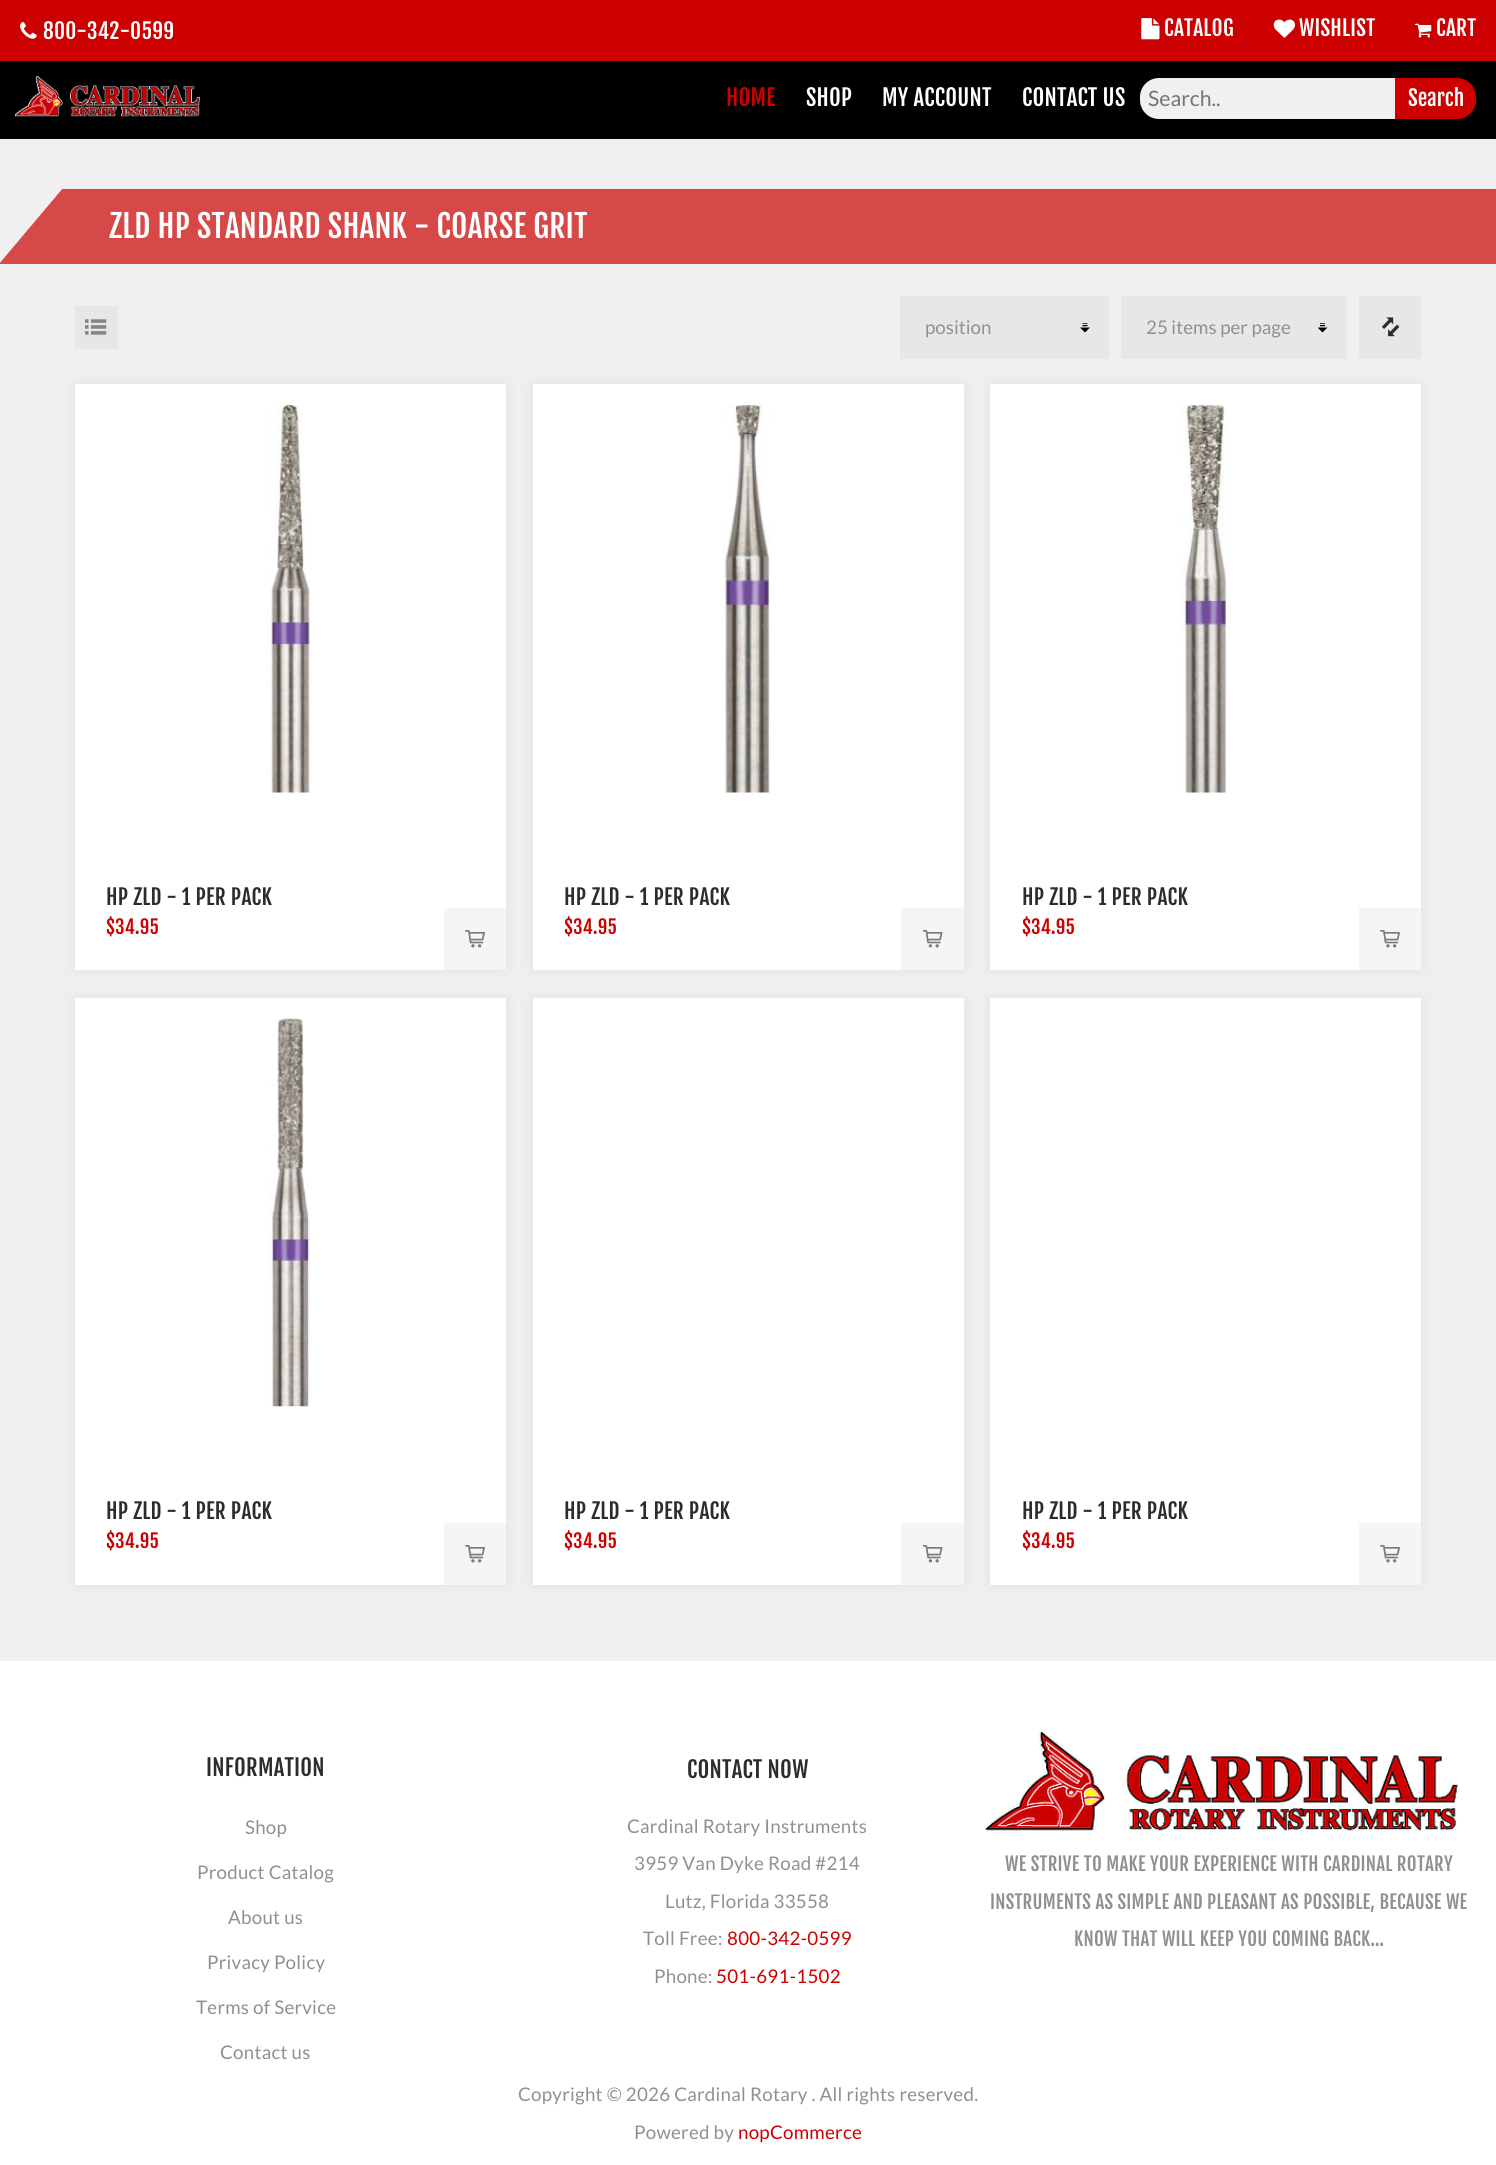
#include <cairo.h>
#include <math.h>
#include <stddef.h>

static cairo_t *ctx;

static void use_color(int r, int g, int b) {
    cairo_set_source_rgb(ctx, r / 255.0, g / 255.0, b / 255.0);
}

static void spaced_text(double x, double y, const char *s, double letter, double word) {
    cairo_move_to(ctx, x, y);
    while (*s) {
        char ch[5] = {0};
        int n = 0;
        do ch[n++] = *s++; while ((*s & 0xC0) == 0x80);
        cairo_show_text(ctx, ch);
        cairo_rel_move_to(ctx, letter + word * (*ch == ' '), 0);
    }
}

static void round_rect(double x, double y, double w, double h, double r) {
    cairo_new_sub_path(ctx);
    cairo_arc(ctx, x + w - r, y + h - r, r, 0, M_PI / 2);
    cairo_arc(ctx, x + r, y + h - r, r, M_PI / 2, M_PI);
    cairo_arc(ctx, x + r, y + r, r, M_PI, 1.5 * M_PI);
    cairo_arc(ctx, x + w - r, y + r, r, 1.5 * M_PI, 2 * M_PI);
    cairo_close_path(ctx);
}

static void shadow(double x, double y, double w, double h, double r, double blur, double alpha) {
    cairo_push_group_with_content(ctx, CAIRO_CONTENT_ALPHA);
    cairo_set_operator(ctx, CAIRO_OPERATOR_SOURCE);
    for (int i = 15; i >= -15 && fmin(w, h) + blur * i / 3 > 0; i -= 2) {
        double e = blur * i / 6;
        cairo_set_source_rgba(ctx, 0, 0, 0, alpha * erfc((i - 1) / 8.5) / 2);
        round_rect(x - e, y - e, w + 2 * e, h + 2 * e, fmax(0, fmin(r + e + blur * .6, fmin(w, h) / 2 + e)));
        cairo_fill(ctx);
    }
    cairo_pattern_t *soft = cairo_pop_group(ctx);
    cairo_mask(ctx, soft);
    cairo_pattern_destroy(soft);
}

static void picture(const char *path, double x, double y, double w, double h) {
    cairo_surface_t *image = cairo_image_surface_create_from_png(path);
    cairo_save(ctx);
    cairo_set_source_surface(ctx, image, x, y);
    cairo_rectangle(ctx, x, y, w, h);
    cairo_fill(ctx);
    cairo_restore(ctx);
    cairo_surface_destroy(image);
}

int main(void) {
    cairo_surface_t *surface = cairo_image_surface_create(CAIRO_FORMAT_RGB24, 1496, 2165);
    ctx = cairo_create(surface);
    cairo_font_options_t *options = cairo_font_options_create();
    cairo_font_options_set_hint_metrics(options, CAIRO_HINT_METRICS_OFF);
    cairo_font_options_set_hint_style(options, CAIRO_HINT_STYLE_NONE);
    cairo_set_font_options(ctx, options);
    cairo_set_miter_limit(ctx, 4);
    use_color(240, 240, 240);
    cairo_paint(ctx);
    use_color(204, 0, 0);
    cairo_rectangle(ctx, 0, 0, 1496, 61);
    cairo_fill(ctx);
    picture("img1.png", 20, 22, 17, 17);
    cairo_select_font_face(ctx, "Fjalla One", CAIRO_FONT_SLANT_NORMAL, CAIRO_FONT_WEIGHT_NORMAL);
    cairo_set_font_size(ctx, 21.25);
    use_color(255, 255, 255);
    spaced_text(43, 39, "800-342-0599", 0.25, 0);
    picture("img2.png", 1141, 18, 19, 22);
    spaced_text(1164, 36, "CATALOG", 0.25, 0);
    picture("img3.png", 1273, 19, 22, 19);
    spaced_text(1299, 36, "WISHLIST", 0.25, 0);
    picture("img4.png", 1415, 23, 17, 15);
    spaced_text(1436, 36, "CART", 0.25, 0);
    use_color(0, 0, 0);
    cairo_rectangle(ctx, 0, 61, 1496, 78);
    cairo_fill(ctx);
    picture("img5.png", 15, 76, 185, 41);
    cairo_set_font_size(ctx, 22.5);
    use_color(204, 0, 0);
    spaced_text(726, 106, "HOME", 0.25, 0);
    use_color(255, 255, 255);
    spaced_text(806, 106, "SHOP", 0.25, 0);
    spaced_text(882, 106, "MY ACCOUNT", 0.25, 0);
    spaced_text(1022, 106, "CONTACT US", 0.25, 0);
    use_color(240, 240, 240);
    cairo_new_path(ctx);
    cairo_move_to(ctx, 1159, 78);
    cairo_line_to(ctx, 1395, 78);
    cairo_line_to(ctx, 1395, 119);
    cairo_line_to(ctx, 1159, 119);
    cairo_curve_to(ctx, 1148.5, 119, 1140, 110.5, 1140, 100);
    cairo_line_to(ctx, 1140, 97);
    cairo_curve_to(ctx, 1140, 86.5, 1148.5, 78, 1159, 78);
    cairo_close_path(ctx);
    cairo_fill(ctx);
    cairo_select_font_face(ctx, "Lato", CAIRO_FONT_SLANT_NORMAL, CAIRO_FONT_WEIGHT_NORMAL);
    cairo_set_font_size(ctx, 21.25);
    use_color(117, 117, 117);
    cairo_move_to(ctx, 1148, 106);
    cairo_show_text(ctx, "Search..");
    use_color(204, 0, 0);
    cairo_new_path(ctx);
    cairo_move_to(ctx, 1395, 78);
    cairo_line_to(ctx, 1457, 78);
    cairo_curve_to(ctx, 1467.5, 78, 1476, 86.5, 1476, 97);
    cairo_line_to(ctx, 1476, 100);
    cairo_curve_to(ctx, 1476, 110.5, 1467.5, 119, 1457, 119);
    cairo_line_to(ctx, 1395, 119);
    cairo_close_path(ctx);
    cairo_fill(ctx);
    cairo_select_font_face(ctx, "Fjalla One", CAIRO_FONT_SLANT_NORMAL, CAIRO_FONT_WEIGHT_NORMAL);
    use_color(255, 255, 255);
    cairo_move_to(ctx, 1408, 106);
    cairo_show_text(ctx, "Search");
    cairo_save(ctx);
    cairo_rectangle(ctx, 0, 189, 1496, 76);
    cairo_clip(ctx);
    use_color(215, 72, 72);
    cairo_new_path(ctx);
    cairo_move_to(ctx, 63, 188);
    cairo_line_to(ctx, 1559, 188);
    cairo_line_to(ctx, 1496, 264);
    cairo_line_to(ctx, -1, 264);
    cairo_close_path(ctx);
    cairo_fill(ctx);
    cairo_restore(ctx);
    cairo_set_font_size(ctx, 31.25);
    spaced_text(109, 238, "ZLD HP STANDARD SHANK - COARSE GRIT", 0.25, 0);
    use_color(231, 231, 231);
    cairo_rectangle(ctx, 75, 306, 43, 43);
    cairo_fill(ctx);
    picture("img6.png", 85, 319, 22, 16);
    use_color(0, 0, 0);
    shadow(75, 384, 431, 586, 0, 9, 0.06);
    use_color(255, 255, 255);
    cairo_rectangle(ctx, 75, 384, 431, 586);
    cairo_fill(ctx);
    use_color(0, 0, 0);
    shadow(533, 384, 431, 586, 0, 9, 0.06);
    use_color(255, 255, 255);
    cairo_rectangle(ctx, 533, 384, 431, 586);
    cairo_fill(ctx);
    use_color(0, 0, 0);
    shadow(990, 384, 431, 586, 0, 9, 0.06);
    use_color(231, 231, 231);
    cairo_rectangle(ctx, 900, 296, 209, 63);
    cairo_fill(ctx);
    picture("img7.png", 1080, 323, 10, 10);
    cairo_select_font_face(ctx, "Lato", CAIRO_FONT_SLANT_NORMAL, CAIRO_FONT_WEIGHT_NORMAL);
    cairo_set_font_size(ctx, 18.75);
    use_color(144, 144, 144);
    cairo_move_to(ctx, 925, 334);
    cairo_show_text(ctx, "position");
    use_color(231, 231, 231);
    cairo_rectangle(ctx, 1121, 296, 225, 63);
    cairo_fill(ctx);
    picture("img8.png", 1318, 323, 10, 10);
    use_color(144, 144, 144);
    cairo_move_to(ctx, 1146, 334);
    cairo_show_text(ctx, "25 items per page");
    use_color(231, 231, 231);
    cairo_rectangle(ctx, 1359, 296, 62, 63);
    cairo_fill(ctx);
    picture("img9.png", 1382, 317, 18, 20);
    picture("img10.png", 267, 405, 45, 388);
    cairo_select_font_face(ctx, "Fjalla One", CAIRO_FONT_SLANT_NORMAL, CAIRO_FONT_WEIGHT_NORMAL);
    cairo_set_font_size(ctx, 21.25);
    use_color(44, 44, 44);
    spaced_text(106, 905, "HP ZLD - 1 PER PACK", 0.25, 0);
    cairo_set_font_size(ctx, 18.75);
    use_color(204, 0, 0);
    spaced_text(106, 934, "$34.95", 0.25, 0);
    use_color(245, 245, 245);
    cairo_rectangle(ctx, 444, 908, 62, 62);
    cairo_fill(ctx);
    picture("img11.png", 465, 930, 20, 18);
    picture("img12.png", 721, 405, 51, 388);
    cairo_set_font_size(ctx, 21.25);
    use_color(44, 44, 44);
    spaced_text(564, 905, "HP ZLD - 1 PER PACK", 0.25, 0);
    cairo_set_font_size(ctx, 18.75);
    use_color(204, 0, 0);
    spaced_text(564, 934, "$34.95", 0.25, 0);
    use_color(245, 245, 245);
    cairo_rectangle(ctx, 901, 908, 63, 62);
    cairo_fill(ctx);
    picture("img13.png", 923, 930, 20, 18);
    use_color(255, 255, 255);
    cairo_rectangle(ctx, 990, 384, 431, 586);
    cairo_fill(ctx);
    picture("img14.png", 1181, 405, 49, 388);
    cairo_set_font_size(ctx, 21.25);
    use_color(44, 44, 44);
    spaced_text(1022, 905, "HP ZLD - 1 PER PACK", 0.25, 0);
    cairo_set_font_size(ctx, 18.75);
    use_color(204, 0, 0);
    spaced_text(1022, 934, "$34.95", 0.25, 0);
    use_color(245, 245, 245);
    cairo_rectangle(ctx, 1359, 908, 62, 62);
    cairo_fill(ctx);
    picture("img11.png", 1380, 930, 20, 18);
    use_color(0, 0, 0);
    shadow(75, 998, 431, 587, 0, 9, 0.06);
    use_color(255, 255, 255);
    cairo_rectangle(ctx, 75, 998, 431, 587);
    cairo_fill(ctx);
    picture("img15.png", 269, 1018, 42, 389);
    cairo_set_font_size(ctx, 21.25);
    use_color(44, 44, 44);
    spaced_text(106, 1519, "HP ZLD - 1 PER PACK", 0.25, 0);
    cairo_set_font_size(ctx, 18.75);
    use_color(204, 0, 0);
    spaced_text(106, 1548, "$34.95", 0.25, 0);
    use_color(0, 0, 0);
    shadow(533, 998, 431, 587, 0, 9, 0.06);
    use_color(245, 245, 245);
    cairo_rectangle(ctx, 444, 1523, 62, 62);
    cairo_fill(ctx);
    picture("img11.png", 465, 1545, 20, 18);
    use_color(255, 255, 255);
    cairo_rectangle(ctx, 533, 998, 431, 587);
    cairo_fill(ctx);
    cairo_set_font_size(ctx, 21.25);
    use_color(44, 44, 44);
    spaced_text(564, 1519, "HP ZLD - 1 PER PACK", 0.25, 0);
    cairo_set_font_size(ctx, 18.75);
    use_color(204, 0, 0);
    spaced_text(564, 1548, "$34.95", 0.25, 0);
    use_color(0, 0, 0);
    shadow(990, 998, 431, 587, 0, 9, 0.06);
    use_color(245, 245, 245);
    cairo_rectangle(ctx, 901, 1523, 63, 62);
    cairo_fill(ctx);
    picture("img13.png", 923, 1545, 20, 18);
    use_color(255, 255, 255);
    cairo_rectangle(ctx, 990, 998, 431, 587);
    cairo_fill(ctx);
    cairo_set_font_size(ctx, 21.25);
    use_color(44, 44, 44);
    spaced_text(1022, 1519, "HP ZLD - 1 PER PACK", 0.25, 0);
    cairo_set_font_size(ctx, 18.75);
    use_color(204, 0, 0);
    spaced_text(1022, 1548, "$34.95", 0.25, 0);
    use_color(245, 245, 245);
    cairo_rectangle(ctx, 1359, 1523, 62, 62);
    cairo_fill(ctx);
    picture("img11.png", 1380, 1545, 20, 18);
    use_color(255, 255, 255);
    cairo_rectangle(ctx, 0, 1661, 1496, 504);
    cairo_fill(ctx);
    cairo_set_font_size(ctx, 22.5);
    use_color(44, 44, 44);
    spaced_text(206, 1776, "INFORMATION", 0.25, 0);
    cairo_select_font_face(ctx, "Lato", CAIRO_FONT_SLANT_NORMAL, CAIRO_FONT_WEIGHT_NORMAL);
    cairo_set_font_size(ctx, 18.75);
    use_color(144, 144, 144);
    spaced_text(245, 1834, "Shop", 0.25, 0);
    spaced_text(197, 1879, "Product Catalog", 0.25, 0);
    spaced_text(228, 1924, "About us", 0.25, 0);
    spaced_text(207, 1969, "Privacy Policy", 0.25, 0);
    spaced_text(196, 2014, "Terms of Service", 0.25, 0);
    spaced_text(220, 2059, "Contact us", 0.25, 0);
    cairo_select_font_face(ctx, "Fjalla One", CAIRO_FONT_SLANT_NORMAL, CAIRO_FONT_WEIGHT_NORMAL);
    cairo_set_font_size(ctx, 22.5);
    use_color(44, 44, 44);
    spaced_text(687, 1778, "CONTACT NOW", 0.25, 0);
    cairo_select_font_face(ctx, "Lato", CAIRO_FONT_SLANT_NORMAL, CAIRO_FONT_WEIGHT_NORMAL);
    cairo_set_font_size(ctx, 18.75);
    use_color(144, 144, 144);
    spaced_text(627, 1833, "Cardinal Rotary Instruments", 0.25, 0);
    spaced_text(634, 1870, "3959 Van Dyke Road #214", 0.25, 0);
    spaced_text(665, 1908, "Lutz, Florida 33558", 0.25, 0);
    spaced_text(643, 1945, "Toll Free:", 0.25, 0);
    use_color(204, 0, 0);
    spaced_text(727, 1945, "800-342-0599", 0.25, 0);
    use_color(144, 144, 144);
    spaced_text(654, 1983, "Phone:", 0.25, 0);
    use_color(204, 0, 0);
    spaced_text(716, 1983, "501-691-1502", 0.25, 0);
    picture("img16.png", 985, 1730, 474, 101);
    cairo_select_font_face(ctx, "Fjalla One", CAIRO_FONT_SLANT_NORMAL, CAIRO_FONT_WEIGHT_NORMAL);
    use_color(144, 144, 144);
    spaced_text(1005, 1871, "WE STRIVE TO MAKE YOUR EXPERIENCE WITH CARDINAL ROTARY", 0.25, 0);
    spaced_text(990, 1909, "INSTRUMENTS AS SIMPLE AND PLEASANT AS POSSIBLE, BECAUSE WE", 0.25, 0);
    spaced_text(1074, 1946, "KNOW THAT WILL KEEP YOU COMING BACK…", 0.25, 0);
    cairo_select_font_face(ctx, "Lato", CAIRO_FONT_SLANT_NORMAL, CAIRO_FONT_WEIGHT_NORMAL);
    spaced_text(518, 2101, "Copyright © 2026 Cardinal Rotary . All rights reserved.", 0.25, 0);
    spaced_text(634, 2139, "Powered by", 0.25, 0);
    use_color(204, 0, 0);
    spaced_text(738, 2139, "nopCommerce", 0.25, 0);
    cairo_surface_write_to_png(surface, "result.png");
    cairo_font_options_destroy(options);
    cairo_destroy(ctx);
    cairo_surface_destroy(surface);
    return 0;
}
